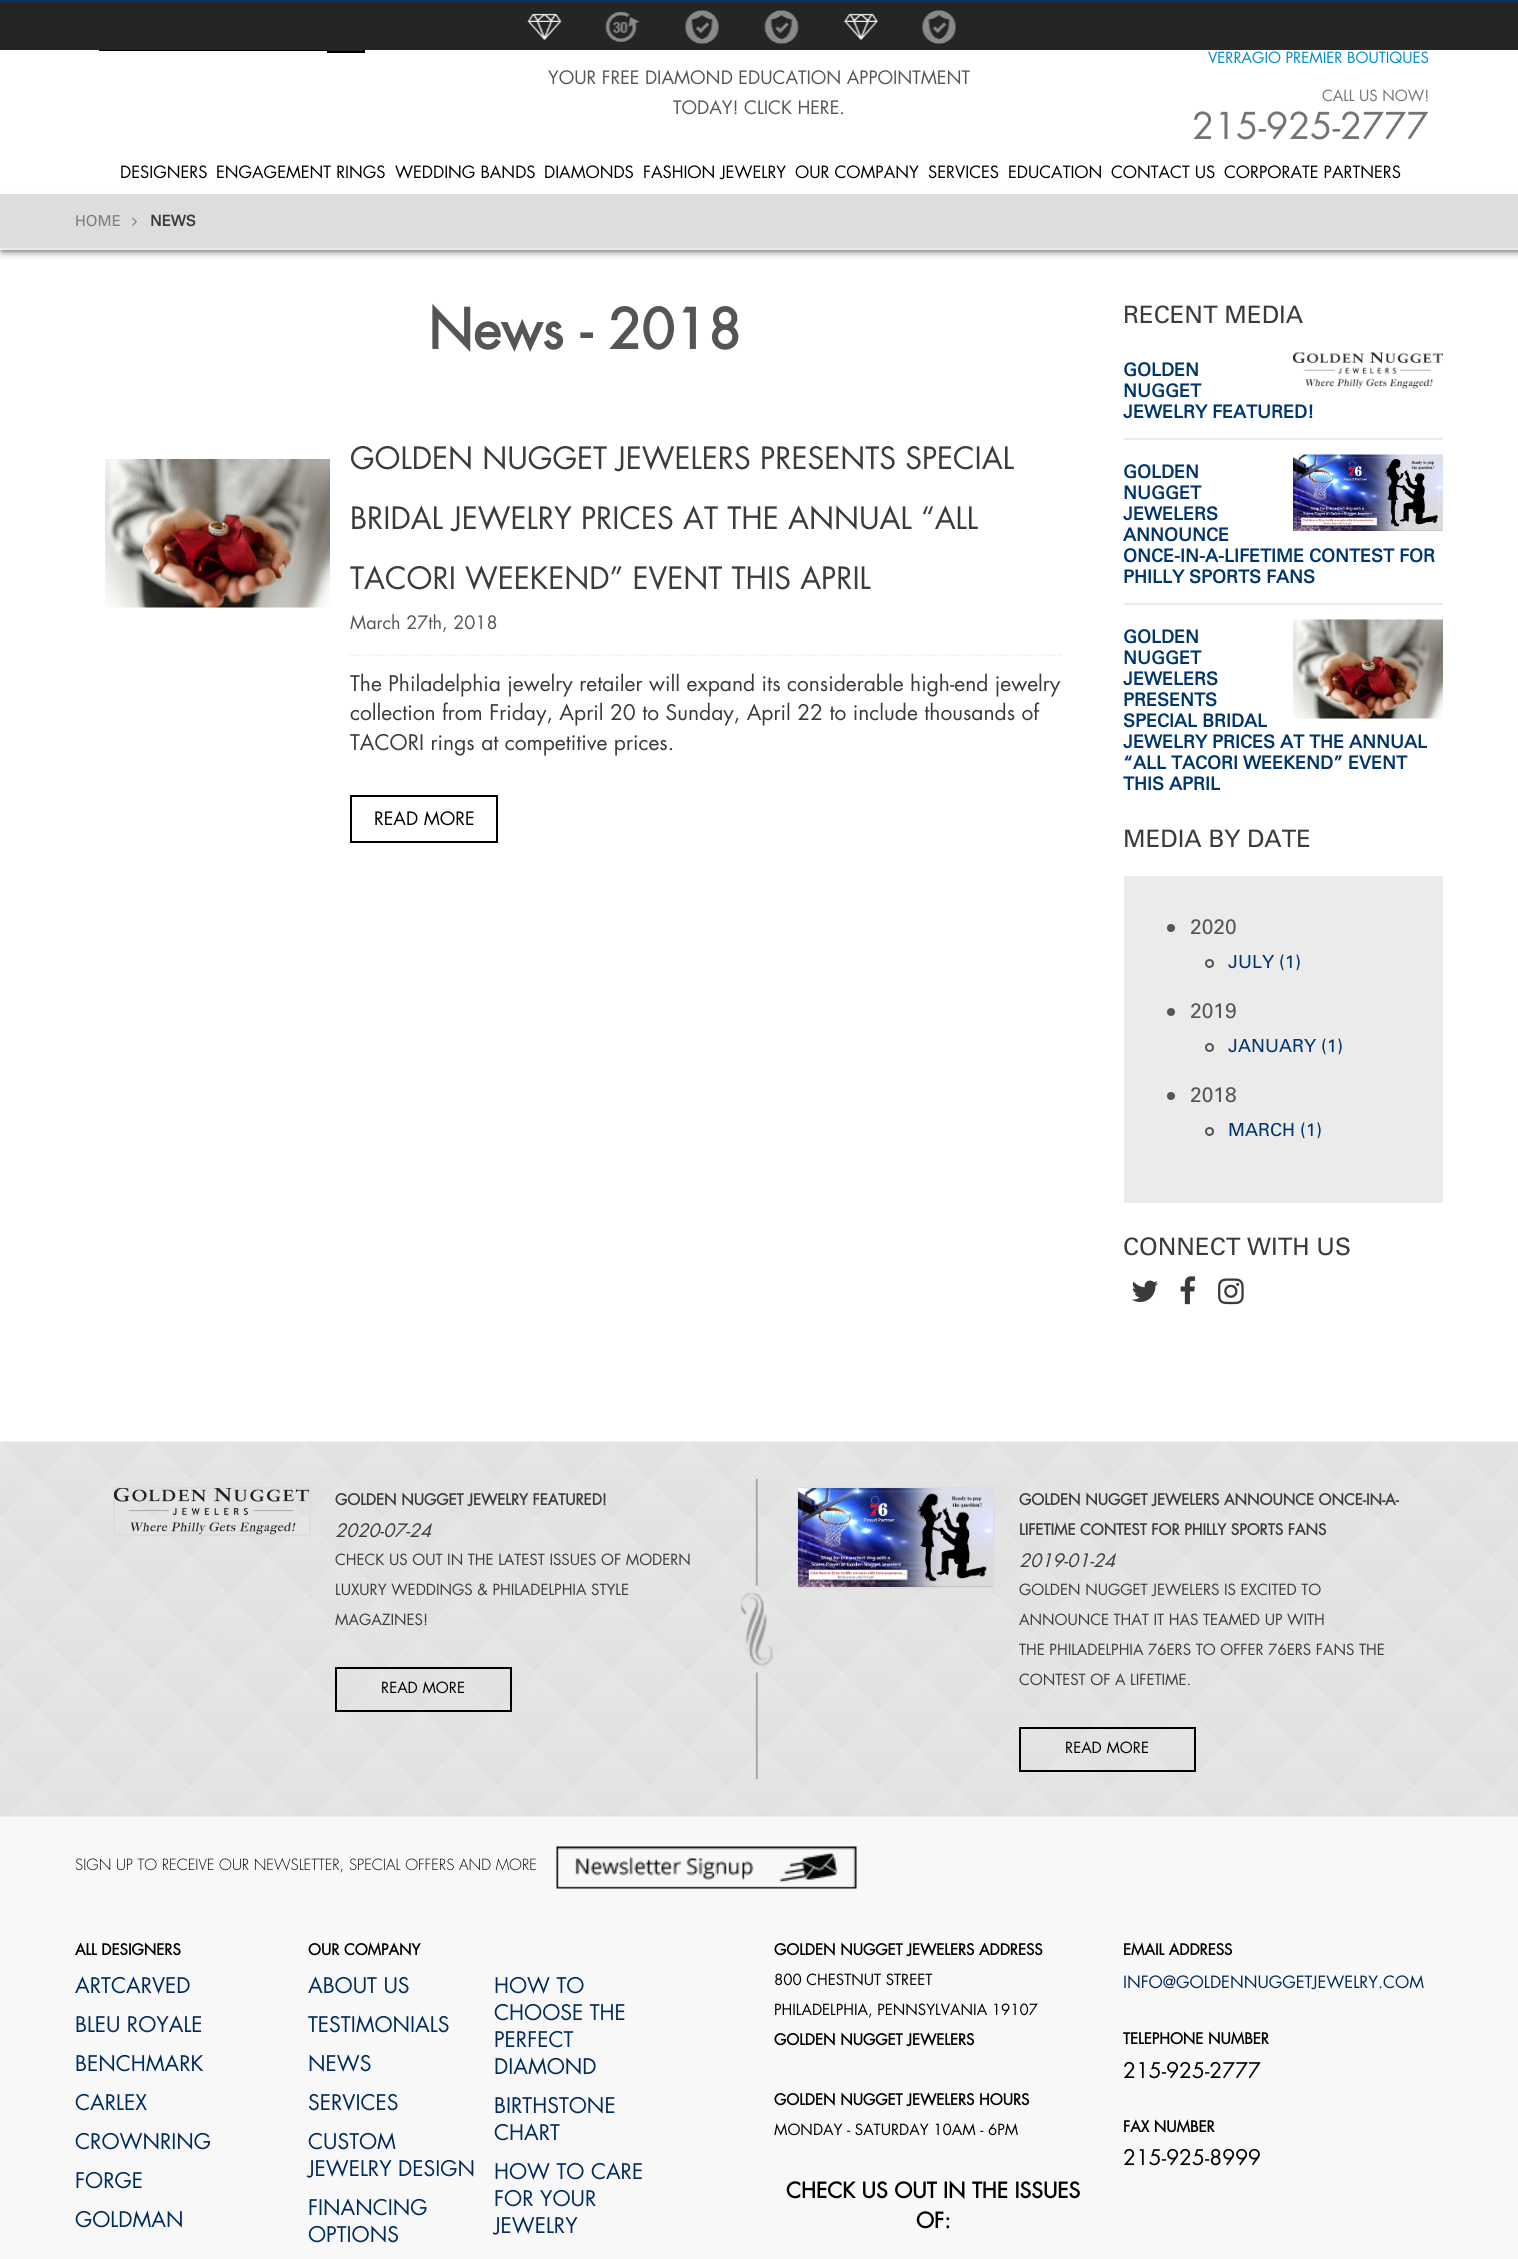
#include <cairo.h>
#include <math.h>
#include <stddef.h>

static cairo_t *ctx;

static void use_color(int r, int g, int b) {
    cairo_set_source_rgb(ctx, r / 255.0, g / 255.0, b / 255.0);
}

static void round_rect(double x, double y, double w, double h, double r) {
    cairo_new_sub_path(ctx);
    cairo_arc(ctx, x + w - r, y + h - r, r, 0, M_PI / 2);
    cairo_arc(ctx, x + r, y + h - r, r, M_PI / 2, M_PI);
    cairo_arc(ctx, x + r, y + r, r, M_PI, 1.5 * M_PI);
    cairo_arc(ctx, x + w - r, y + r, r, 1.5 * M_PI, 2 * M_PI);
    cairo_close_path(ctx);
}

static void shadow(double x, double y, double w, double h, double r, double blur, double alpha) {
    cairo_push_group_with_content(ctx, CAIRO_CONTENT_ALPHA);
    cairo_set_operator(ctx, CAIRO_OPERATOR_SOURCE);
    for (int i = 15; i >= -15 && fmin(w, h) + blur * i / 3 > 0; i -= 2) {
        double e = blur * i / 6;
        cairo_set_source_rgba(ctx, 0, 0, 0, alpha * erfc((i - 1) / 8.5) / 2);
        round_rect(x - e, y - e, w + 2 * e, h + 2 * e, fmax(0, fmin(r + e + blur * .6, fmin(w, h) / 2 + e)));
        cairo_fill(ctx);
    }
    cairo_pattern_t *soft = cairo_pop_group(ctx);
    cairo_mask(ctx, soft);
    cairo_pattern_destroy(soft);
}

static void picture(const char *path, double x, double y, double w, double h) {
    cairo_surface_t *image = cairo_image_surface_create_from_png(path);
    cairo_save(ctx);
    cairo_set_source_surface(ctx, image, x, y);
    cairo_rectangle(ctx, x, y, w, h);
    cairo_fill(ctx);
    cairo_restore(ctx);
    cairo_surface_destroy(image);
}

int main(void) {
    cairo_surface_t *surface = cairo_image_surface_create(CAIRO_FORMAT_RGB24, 1518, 2259);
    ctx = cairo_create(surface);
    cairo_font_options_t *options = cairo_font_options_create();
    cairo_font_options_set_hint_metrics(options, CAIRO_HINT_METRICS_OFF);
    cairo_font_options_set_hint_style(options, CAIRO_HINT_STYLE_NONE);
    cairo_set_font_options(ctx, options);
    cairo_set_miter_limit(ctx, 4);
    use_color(255, 255, 255);
    cairo_paint(ctx);
    cairo_rectangle(ctx, 100, 15, 226, 35);
    use_color(0, 0, 0);
    cairo_stroke(ctx);
    use_color(37, 37, 37);
    cairo_rectangle(ctx, 0, 2, 1518, 48);
    cairo_fill(ctx);
    use_color(0, 53, 109);
    cairo_rectangle(ctx, 0, 0, 1518, 2);
    cairo_fill(ctx);
    picture("img1.png", 527, 13, 35, 27);
    picture("img2.png", 605, 11, 35, 31);
    picture("img3.png", 685, 10, 34, 34);
    picture("img4.png", 764, 10, 35, 34);
    picture("img5.png", 844, 13, 34, 27);
    picture("img6.png", 922, 10, 34, 34);
    use_color(37, 37, 37);
    cairo_rectangle(ctx, 327, 50, 36, 1);
    cairo_fill(ctx);
    use_color(0, 0, 0);
    cairo_rectangle(ctx, 363, 50, 2, 3);
    cairo_fill(ctx);
    cairo_rectangle(ctx, 327, 51, 38, 2);
    cairo_fill(ctx);
    cairo_select_font_face(ctx, "Futura", CAIRO_FONT_SLANT_NORMAL, CAIRO_FONT_WEIGHT_NORMAL);
    cairo_set_font_size(ctx, 18);
    use_color(85, 85, 85);
    cairo_move_to(ctx, 548, 84);
    cairo_show_text(ctx, "YOUR FREE DIAMOND EDUCATION APPOINTMENT");
    cairo_move_to(ctx, 673, 114);
    cairo_show_text(ctx, "TODAY! CLICK HERE.");
    cairo_set_font_size(ctx, 15);
    use_color(0, 136, 204);
    cairo_move_to(ctx, 1208, 63);
    cairo_show_text(ctx, "VERRAGIO PREMIER BOUTIQUES");
    use_color(116, 116, 116);
    cairo_move_to(ctx, 1322, 101);
    cairo_show_text(ctx, "CALL US NOW!");
    cairo_set_font_size(ctx, 36);
    cairo_move_to(ctx, 1192, 139);
    cairo_show_text(ctx, "215-925-2777");
    use_color(85, 85, 85);
    shadow(2, 195, 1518, 56, 0, 4, 1);
    use_color(255, 255, 255);
    cairo_rectangle(ctx, 0, 186, 1518, 8);
    cairo_fill(ctx);
    cairo_set_font_size(ctx, 16.5);
    use_color(0, 0, 0);
    cairo_move_to(ctx, 120, 178);
    cairo_show_text(ctx, "DESIGNERS");
    cairo_move_to(ctx, 216, 178);
    cairo_show_text(ctx, "ENGAGEMENT RINGS");
    cairo_move_to(ctx, 395, 178);
    cairo_show_text(ctx, "WEDDING BANDS");
    cairo_move_to(ctx, 544, 178);
    cairo_show_text(ctx, "DIAMONDS");
    cairo_move_to(ctx, 643, 178);
    cairo_show_text(ctx, "FASHION JEWELRY");
    cairo_move_to(ctx, 795, 178);
    cairo_show_text(ctx, "OUR COMPANY");
    cairo_move_to(ctx, 928, 178);
    cairo_show_text(ctx, "SERVICES");
    cairo_move_to(ctx, 1008, 178);
    cairo_show_text(ctx, "EDUCATION");
    cairo_move_to(ctx, 1111, 178);
    cairo_show_text(ctx, "CONTACT US");
    cairo_move_to(ctx, 1224, 178);
    cairo_show_text(ctx, "CORPORATE PARTNERS");
    use_color(221, 221, 221);
    cairo_rectangle(ctx, 0, 194, 1518, 54);
    cairo_fill(ctx);
    use_color(235, 235, 235);
    cairo_rectangle(ctx, 0, 248, 1518, 2);
    cairo_fill(ctx);
    cairo_select_font_face(ctx, "Univers", CAIRO_FONT_SLANT_NORMAL, CAIRO_FONT_WEIGHT_NORMAL);
    cairo_set_font_size(ctx, 15);
    use_color(125, 125, 125);
    cairo_move_to(ctx, 75, 226);
    cairo_show_text(ctx, "HOME");
    picture("img7.png", 132, 217, 5, 9);
    cairo_select_font_face(ctx, "Univers", CAIRO_FONT_SLANT_NORMAL, CAIRO_FONT_WEIGHT_BOLD);
    use_color(59, 59, 59);
    cairo_move_to(ctx, 150, 226);
    cairo_show_text(ctx, "NEWS");
    cairo_select_font_face(ctx, "Futura", CAIRO_FONT_SLANT_NORMAL, CAIRO_FONT_WEIGHT_BOLD);
    cairo_set_font_size(ctx, 54);
    use_color(85, 85, 85);
    cairo_move_to(ctx, 428, 349);
    cairo_show_text(ctx, "News - 2018");
    picture("img8.png", 105, 459, 225, 149);
    cairo_select_font_face(ctx, "Futura", CAIRO_FONT_SLANT_NORMAL, CAIRO_FONT_WEIGHT_NORMAL);
    cairo_set_font_size(ctx, 30);
    use_color(59, 59, 59);
    cairo_move_to(ctx, 350, 469);
    cairo_show_text(ctx, "GOLDEN NUGGET JEWELERS PRESENTS SPECIAL");
    cairo_move_to(ctx, 350, 529);
    cairo_show_text(ctx, "BRIDAL JEWELRY PRICES AT THE ANNUAL “ALL");
    cairo_move_to(ctx, 350, 589);
    cairo_show_text(ctx, "TACORI WEEKEND” EVENT THIS APRIL");
    cairo_new_path(ctx);
    cairo_move_to(ctx, 349.5, 655);
    cairo_line_to(ctx, 1063.5, 655);
    use_color(235, 235, 235);
    cairo_set_line_width(ctx, 1.5);
    cairo_set_dash(ctx, (double[]){1.5, 1.5}, 2, 0);
    cairo_stroke(ctx);
    cairo_set_font_size(ctx, 18);
    use_color(85, 85, 85);
    cairo_move_to(ctx, 350, 629);
    cairo_show_text(ctx, "March 27th, 2018");
    cairo_set_font_size(ctx, 21);
    use_color(59, 59, 59);
    cairo_move_to(ctx, 350, 691);
    cairo_show_text(ctx, "The Philadelphia jewelry retailer will expand its considerable high-end jewelry");
    cairo_move_to(ctx, 350, 720);
    cairo_show_text(ctx, "collection from Friday, April 20 to Sunday, April 22 to include thousands of");
    cairo_move_to(ctx, 350, 750);
    cairo_show_text(ctx, "TACORI rings at competitive prices.");
    cairo_rectangle(ctx, 351, 796, 146, 46);
    use_color(0, 0, 0);
    cairo_set_line_width(ctx, 2);
    cairo_set_dash(ctx, NULL, 0, 0);
    cairo_stroke(ctx);
    cairo_set_font_size(ctx, 18);
    cairo_move_to(ctx, 374, 825);
    cairo_show_text(ctx, "READ MORE");
    cairo_select_font_face(ctx, "Univers", CAIRO_FONT_SLANT_NORMAL, CAIRO_FONT_WEIGHT_NORMAL);
    cairo_set_font_size(ctx, 24);
    use_color(59, 59, 59);
    cairo_move_to(ctx, 1123, 323);
    cairo_show_text(ctx, "RECENT MEDIA");
    cairo_select_font_face(ctx, "Univers", CAIRO_FONT_SLANT_NORMAL, CAIRO_FONT_WEIGHT_BOLD);
    cairo_set_font_size(ctx, 18);
    use_color(0, 53, 109);
    cairo_move_to(ctx, 1123, 376);
    cairo_show_text(ctx, "GOLDEN");
    cairo_move_to(ctx, 1123, 397);
    cairo_show_text(ctx, "NUGGET");
    cairo_move_to(ctx, 1123, 418);
    cairo_show_text(ctx, "JEWELRY FEATURED!");
    picture("img9.png", 1293, 352, 150, 37);
    use_color(235, 235, 235);
    cairo_rectangle(ctx, 1124, 438, 319, 2);
    cairo_fill(ctx);
    picture("img10.png", 1293, 454, 150, 77);
    use_color(0, 53, 109);
    cairo_move_to(ctx, 1123, 478);
    cairo_show_text(ctx, "GOLDEN");
    cairo_move_to(ctx, 1123, 499);
    cairo_show_text(ctx, "NUGGET");
    cairo_move_to(ctx, 1123, 520);
    cairo_show_text(ctx, "JEWELERS");
    cairo_move_to(ctx, 1123, 541);
    cairo_show_text(ctx, "ANNOUNCE");
    cairo_move_to(ctx, 1123, 562);
    cairo_show_text(ctx, "ONCE-IN-A-LIFETIME CONTEST FOR");
    cairo_move_to(ctx, 1123, 583);
    cairo_show_text(ctx, "PHILLY SPORTS FANS");
    use_color(235, 235, 235);
    cairo_rectangle(ctx, 1124, 603, 319, 2);
    cairo_fill(ctx);
    picture("img11.png", 1293, 619, 150, 100);
    use_color(0, 53, 109);
    cairo_move_to(ctx, 1123, 643);
    cairo_show_text(ctx, "GOLDEN");
    cairo_move_to(ctx, 1123, 664);
    cairo_show_text(ctx, "NUGGET");
    cairo_move_to(ctx, 1123, 685);
    cairo_show_text(ctx, "JEWELERS");
    cairo_move_to(ctx, 1123, 706);
    cairo_show_text(ctx, "PRESENTS");
    cairo_move_to(ctx, 1123, 727);
    cairo_show_text(ctx, "SPECIAL BRIDAL");
    cairo_move_to(ctx, 1123, 748);
    cairo_show_text(ctx, "JEWELRY PRICES AT THE ANNUAL");
    cairo_move_to(ctx, 1123, 769);
    cairo_show_text(ctx, "“ALL TACORI WEEKEND” EVENT");
    cairo_move_to(ctx, 1123, 790);
    cairo_show_text(ctx, "THIS APRIL");
    cairo_select_font_face(ctx, "Univers", CAIRO_FONT_SLANT_NORMAL, CAIRO_FONT_WEIGHT_NORMAL);
    cairo_set_font_size(ctx, 24);
    use_color(59, 59, 59);
    cairo_move_to(ctx, 1123, 847);
    cairo_show_text(ctx, "MEDIA BY DATE");
    use_color(235, 235, 235);
    cairo_rectangle(ctx, 1124, 876, 319, 327);
    cairo_fill(ctx);
    use_color(85, 85, 85);
    cairo_arc(ctx, 1171, 928, 4, 0, 2 * M_PI);
    cairo_fill(ctx);
    cairo_set_font_size(ctx, 21);
    cairo_move_to(ctx, 1190, 934);
    cairo_show_text(ctx, "2020");
    cairo_new_path(ctx);
    cairo_arc(ctx, 1209.5, 963.5, 3.5, 0, 2 * M_PI);
    cairo_stroke(ctx);
    cairo_set_font_size(ctx, 18);
    use_color(0, 53, 109);
    cairo_move_to(ctx, 1228, 968);
    cairo_show_text(ctx, "JULY (1)");
    use_color(85, 85, 85);
    cairo_new_path(ctx);
    cairo_arc(ctx, 1171, 1012, 4, 0, 2 * M_PI);
    cairo_fill(ctx);
    cairo_set_font_size(ctx, 21);
    cairo_move_to(ctx, 1190, 1018);
    cairo_show_text(ctx, "2019");
    cairo_new_path(ctx);
    cairo_arc(ctx, 1209.5, 1047.5, 3.5, 0, 2 * M_PI);
    cairo_stroke(ctx);
    cairo_set_font_size(ctx, 18);
    use_color(0, 53, 109);
    cairo_move_to(ctx, 1228, 1052);
    cairo_show_text(ctx, "JANUARY (1)");
    use_color(85, 85, 85);
    cairo_new_path(ctx);
    cairo_arc(ctx, 1171, 1096, 4, 0, 2 * M_PI);
    cairo_fill(ctx);
    cairo_set_font_size(ctx, 21);
    cairo_move_to(ctx, 1190, 1102);
    cairo_show_text(ctx, "2018");
    cairo_new_path(ctx);
    cairo_arc(ctx, 1209.5, 1131.5, 3.5, 0, 2 * M_PI);
    cairo_stroke(ctx);
    cairo_set_font_size(ctx, 18);
    use_color(0, 53, 109);
    cairo_move_to(ctx, 1228, 1136);
    cairo_show_text(ctx, "MARCH (1)");
    cairo_set_font_size(ctx, 24);
    use_color(59, 59, 59);
    cairo_move_to(ctx, 1123, 1255);
    cairo_show_text(ctx, "CONNECT WITH US");
    picture("img12.png", 1132, 1280, 26, 22);
    picture("img13.png", 1180, 1276, 16, 29);
    picture("img14.png", 1218, 1278, 26, 27);
    use_color(248, 248, 248);
    cairo_rectangle(ctx, 0, 1816, 1518, 443);
    cairo_fill(ctx);
    picture("img15.png", 0, 1441, 1518, 376);
    cairo_rectangle(ctx, 114, 1488, 196, 47);
    use_color(221, 221, 221);
    cairo_stroke(ctx);
    picture("img16.png", 114, 1488, 195, 47);
    cairo_select_font_face(ctx, "Futura", CAIRO_FONT_SLANT_NORMAL, CAIRO_FONT_WEIGHT_BOLD);
    cairo_set_font_size(ctx, 15);
    use_color(59, 59, 59);
    cairo_move_to(ctx, 335, 1505);
    cairo_show_text(ctx, "GOLDEN NUGGET JEWELRY FEATURED!");
    cairo_select_font_face(ctx, "Futura", CAIRO_FONT_SLANT_ITALIC, CAIRO_FONT_WEIGHT_NORMAL);
    cairo_set_font_size(ctx, 18);
    cairo_move_to(ctx, 335, 1537);
    cairo_show_text(ctx, "2020-07-24");
    cairo_select_font_face(ctx, "Futura", CAIRO_FONT_SLANT_NORMAL, CAIRO_FONT_WEIGHT_NORMAL);
    cairo_set_font_size(ctx, 15);
    cairo_move_to(ctx, 335, 1565);
    cairo_show_text(ctx, "CHECK US OUT IN THE LATEST ISSUES OF MODERN");
    cairo_move_to(ctx, 335, 1595);
    cairo_show_text(ctx, "LUXURY WEDDINGS & PHILADELPHIA STYLE");
    cairo_move_to(ctx, 335, 1625);
    cairo_show_text(ctx, "MAGAZINES!");
    cairo_rectangle(ctx, 336, 1668, 175, 43);
    use_color(0, 0, 0);
    cairo_stroke(ctx);
    cairo_move_to(ctx, 381, 1693);
    cairo_show_text(ctx, "READ MORE");
    picture("img17.png", 741, 1479, 32, 300);
    cairo_rectangle(ctx, 798, 1488, 196, 100);
    use_color(221, 221, 221);
    cairo_stroke(ctx);
    picture("img18.png", 798, 1488, 195, 99);
    cairo_select_font_face(ctx, "Futura", CAIRO_FONT_SLANT_NORMAL, CAIRO_FONT_WEIGHT_BOLD);
    use_color(59, 59, 59);
    cairo_move_to(ctx, 1019, 1505);
    cairo_show_text(ctx, "GOLDEN NUGGET JEWELERS ANNOUNCE ONCE-IN-A-");
    cairo_move_to(ctx, 1019, 1535);
    cairo_show_text(ctx, "LIFETIME CONTEST FOR PHILLY SPORTS FANS");
    cairo_select_font_face(ctx, "Futura", CAIRO_FONT_SLANT_ITALIC, CAIRO_FONT_WEIGHT_NORMAL);
    cairo_set_font_size(ctx, 18);
    cairo_move_to(ctx, 1019, 1567);
    cairo_show_text(ctx, "2019-01-24");
    cairo_select_font_face(ctx, "Futura", CAIRO_FONT_SLANT_NORMAL, CAIRO_FONT_WEIGHT_NORMAL);
    cairo_set_font_size(ctx, 15);
    cairo_move_to(ctx, 1019, 1595);
    cairo_show_text(ctx, "GOLDEN NUGGET JEWELERS IS EXCITED TO");
    cairo_move_to(ctx, 1019, 1625);
    cairo_show_text(ctx, "ANNOUNCE THAT IT HAS TEAMED UP WITH");
    cairo_move_to(ctx, 1019, 1655);
    cairo_show_text(ctx, "THE PHILADELPHIA 76ERS TO OFFER 76ERS FANS THE");
    cairo_move_to(ctx, 1019, 1685);
    cairo_show_text(ctx, "CONTEST OF A LIFETIME.");
    cairo_rectangle(ctx, 1020, 1728, 175, 43);
    use_color(0, 0, 0);
    cairo_stroke(ctx);
    cairo_move_to(ctx, 1065, 1753);
    cairo_show_text(ctx, "READ MORE");
    cairo_select_font_face(ctx, "Futura Light", CAIRO_FONT_SLANT_NORMAL, CAIRO_FONT_WEIGHT_NORMAL);
    cairo_move_to(ctx, 75, 1870);
    cairo_show_text(ctx, "SIGN UP TO RECEIVE OUR NEWSLETTER, SPECIAL OFFERS AND MORE");
    picture("img19.png", 556, 1846, 301, 43);
    cairo_select_font_face(ctx, "Futura", CAIRO_FONT_SLANT_NORMAL, CAIRO_FONT_WEIGHT_BOLD);
    cairo_move_to(ctx, 75, 1955);
    cairo_show_text(ctx, "ALL DESIGNERS");
    cairo_select_font_face(ctx, "Futura", CAIRO_FONT_SLANT_NORMAL, CAIRO_FONT_WEIGHT_NORMAL);
    cairo_set_font_size(ctx, 21);
    use_color(0, 43, 92);
    cairo_move_to(ctx, 75, 1993);
    cairo_show_text(ctx, "ARTCARVED");
    cairo_move_to(ctx, 75, 2032);
    cairo_show_text(ctx, "BLEU ROYALE");
    cairo_move_to(ctx, 75, 2071);
    cairo_show_text(ctx, "BENCHMARK");
    cairo_move_to(ctx, 75, 2110);
    cairo_show_text(ctx, "CARLEX");
    cairo_move_to(ctx, 75, 2149);
    cairo_show_text(ctx, "CROWNRING");
    cairo_move_to(ctx, 75, 2188);
    cairo_show_text(ctx, "FORGE");
    cairo_move_to(ctx, 75, 2227);
    cairo_show_text(ctx, "GOLDMAN");
    cairo_select_font_face(ctx, "Futura", CAIRO_FONT_SLANT_NORMAL, CAIRO_FONT_WEIGHT_BOLD);
    cairo_set_font_size(ctx, 15);
    use_color(0, 0, 0);
    cairo_move_to(ctx, 308, 1955);
    cairo_show_text(ctx, "OUR COMPANY");
    cairo_select_font_face(ctx, "Futura", CAIRO_FONT_SLANT_NORMAL, CAIRO_FONT_WEIGHT_NORMAL);
    cairo_set_font_size(ctx, 21);
    use_color(0, 43, 92);
    cairo_move_to(ctx, 308, 1993);
    cairo_show_text(ctx, "ABOUT US");
    cairo_move_to(ctx, 308, 2032);
    cairo_show_text(ctx, "TESTIMONIALS");
    cairo_move_to(ctx, 308, 2071);
    cairo_show_text(ctx, "NEWS");
    cairo_move_to(ctx, 308, 2110);
    cairo_show_text(ctx, "SERVICES");
    cairo_move_to(ctx, 308, 2149);
    cairo_show_text(ctx, "CUSTOM");
    cairo_move_to(ctx, 308, 2176);
    cairo_show_text(ctx, "JEWELRY DESIGN");
    cairo_move_to(ctx, 308, 2215);
    cairo_show_text(ctx, "FINANCING");
    cairo_move_to(ctx, 308, 2242);
    cairo_show_text(ctx, "OPTIONS");
    cairo_move_to(ctx, 494, 1993);
    cairo_show_text(ctx, "HOW TO");
    cairo_move_to(ctx, 494, 2020);
    cairo_show_text(ctx, "CHOOSE THE");
    cairo_move_to(ctx, 494, 2047);
    cairo_show_text(ctx, "PERFECT");
    cairo_move_to(ctx, 494, 2074);
    cairo_show_text(ctx, "DIAMOND");
    cairo_move_to(ctx, 494, 2113);
    cairo_show_text(ctx, "BIRTHSTONE");
    cairo_move_to(ctx, 494, 2140);
    cairo_show_text(ctx, "CHART");
    cairo_move_to(ctx, 494, 2179);
    cairo_show_text(ctx, "HOW TO CARE");
    cairo_move_to(ctx, 494, 2206);
    cairo_show_text(ctx, "FOR YOUR");
    cairo_move_to(ctx, 494, 2233);
    cairo_show_text(ctx, "JEWELRY");
    cairo_select_font_face(ctx, "Futura", CAIRO_FONT_SLANT_NORMAL, CAIRO_FONT_WEIGHT_BOLD);
    cairo_set_font_size(ctx, 15);
    use_color(0, 0, 0);
    cairo_move_to(ctx, 774, 1955);
    cairo_show_text(ctx, "GOLDEN NUGGET JEWELERS ADDRESS");
    cairo_select_font_face(ctx, "Futura", CAIRO_FONT_SLANT_NORMAL, CAIRO_FONT_WEIGHT_NORMAL);
    cairo_move_to(ctx, 774, 1985);
    cairo_show_text(ctx, "800 CHESTNUT STREET");
    cairo_move_to(ctx, 774, 2015);
    cairo_show_text(ctx, "PHILADELPHIA, PENNSYLVANIA 19107");
    cairo_select_font_face(ctx, "Futura", CAIRO_FONT_SLANT_NORMAL, CAIRO_FONT_WEIGHT_BOLD);
    cairo_move_to(ctx, 774, 2045);
    cairo_show_text(ctx, "GOLDEN NUGGET JEWELERS");
    cairo_move_to(ctx, 774, 2105);
    cairo_show_text(ctx, "GOLDEN NUGGET JEWELERS HOURS");
    cairo_select_font_face(ctx, "Futura", CAIRO_FONT_SLANT_NORMAL, CAIRO_FONT_WEIGHT_NORMAL);
    cairo_move_to(ctx, 774, 2135);
    cairo_show_text(ctx, "MONDAY - SATURDAY 10AM - 6PM");
    cairo_select_font_face(ctx, "Futura", CAIRO_FONT_SLANT_NORMAL, CAIRO_FONT_WEIGHT_BOLD);
    cairo_set_font_size(ctx, 21);
    cairo_move_to(ctx, 786, 2198);
    cairo_show_text(ctx, "CHECK US OUT IN THE ISSUES");
    cairo_move_to(ctx, 916, 2228);
    cairo_show_text(ctx, "OF:");
    cairo_set_font_size(ctx, 15);
    cairo_move_to(ctx, 1123, 1955);
    cairo_show_text(ctx, "EMAIL ADDRESS");
    cairo_select_font_face(ctx, "Futura", CAIRO_FONT_SLANT_NORMAL, CAIRO_FONT_WEIGHT_NORMAL);
    cairo_set_font_size(ctx, 16.5);
    use_color(0, 43, 92);
    cairo_move_to(ctx, 1123, 1988);
    cairo_show_text(ctx, "INFO@GOLDENNUGGETJEWELRY.COM");
    cairo_select_font_face(ctx, "Futura", CAIRO_FONT_SLANT_NORMAL, CAIRO_FONT_WEIGHT_BOLD);
    cairo_set_font_size(ctx, 15);
    use_color(0, 0, 0);
    cairo_move_to(ctx, 1123, 2044);
    cairo_show_text(ctx, "TELEPHONE NUMBER");
    cairo_select_font_face(ctx, "Futura", CAIRO_FONT_SLANT_NORMAL, CAIRO_FONT_WEIGHT_NORMAL);
    cairo_set_font_size(ctx, 21);
    cairo_move_to(ctx, 1123, 2078);
    cairo_show_text(ctx, "215-925-2777");
    cairo_select_font_face(ctx, "Futura", CAIRO_FONT_SLANT_NORMAL, CAIRO_FONT_WEIGHT_BOLD);
    cairo_set_font_size(ctx, 15);
    cairo_move_to(ctx, 1123, 2132);
    cairo_show_text(ctx, "FAX NUMBER");
    cairo_select_font_face(ctx, "Futura", CAIRO_FONT_SLANT_NORMAL, CAIRO_FONT_WEIGHT_NORMAL);
    cairo_set_font_size(ctx, 21);
    cairo_move_to(ctx, 1123, 2165);
    cairo_show_text(ctx, "215-925-8999");
    cairo_surface_write_to_png(surface, "result.png");
    cairo_font_options_destroy(options);
    cairo_destroy(ctx);
    cairo_surface_destroy(surface);
    return 0;
}
